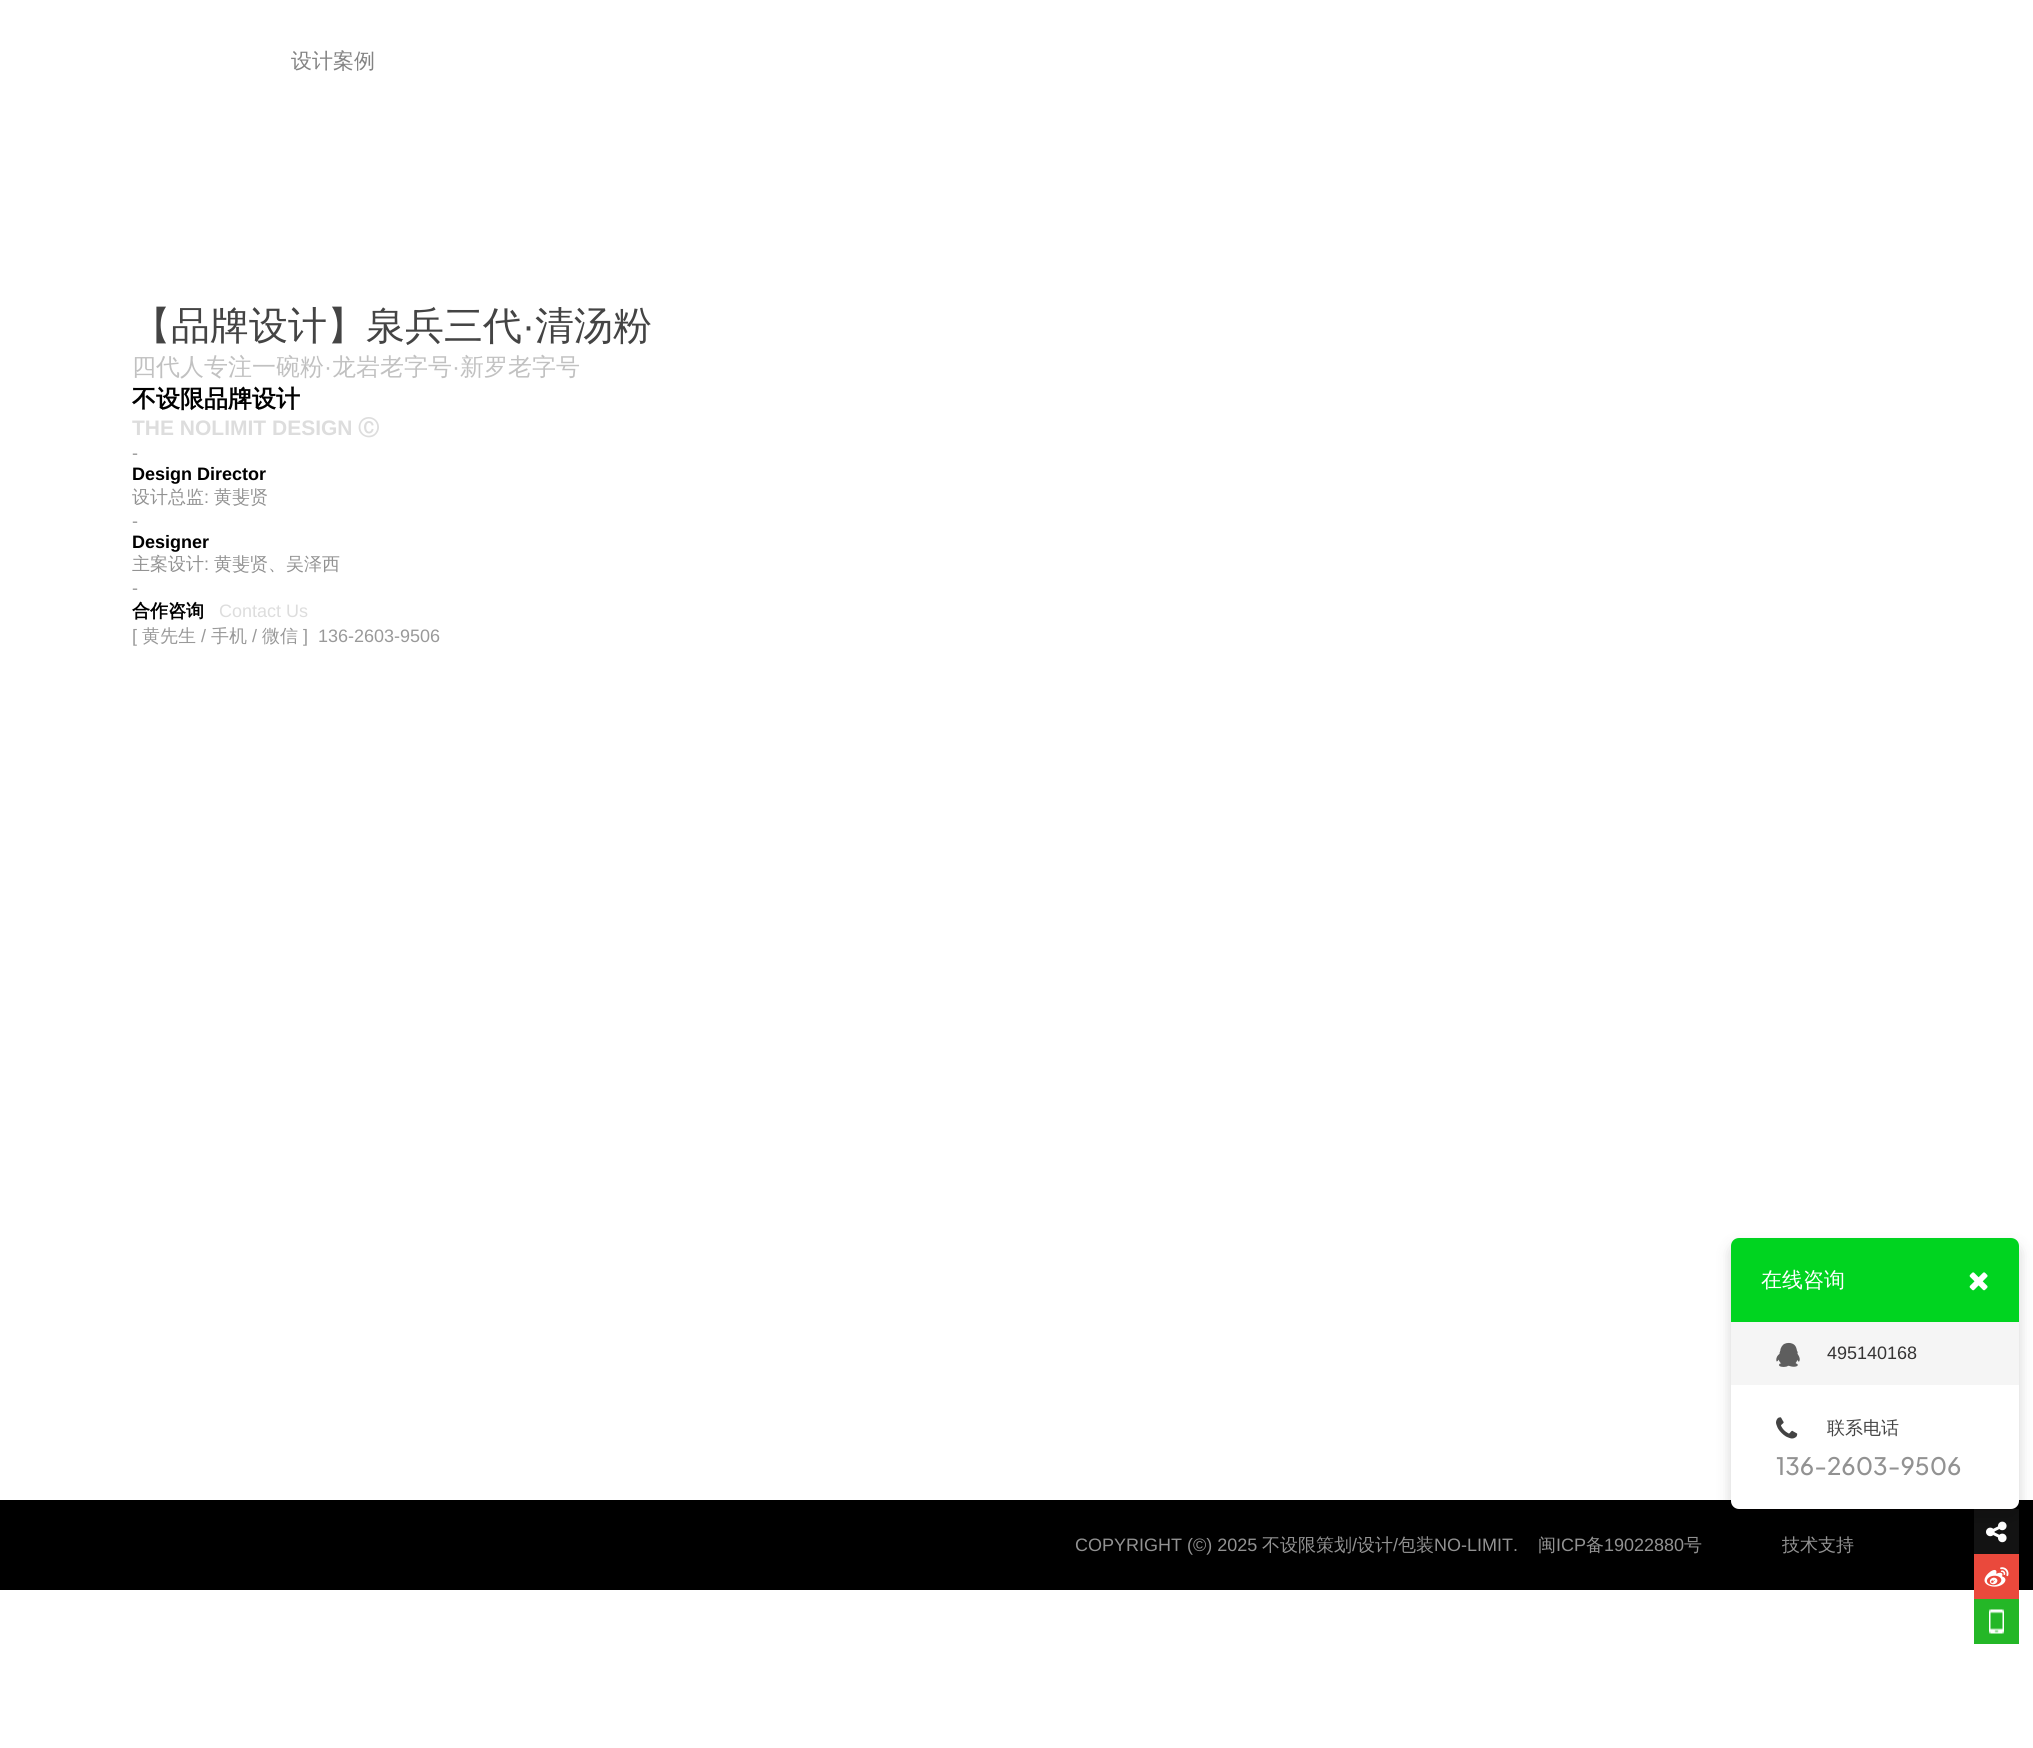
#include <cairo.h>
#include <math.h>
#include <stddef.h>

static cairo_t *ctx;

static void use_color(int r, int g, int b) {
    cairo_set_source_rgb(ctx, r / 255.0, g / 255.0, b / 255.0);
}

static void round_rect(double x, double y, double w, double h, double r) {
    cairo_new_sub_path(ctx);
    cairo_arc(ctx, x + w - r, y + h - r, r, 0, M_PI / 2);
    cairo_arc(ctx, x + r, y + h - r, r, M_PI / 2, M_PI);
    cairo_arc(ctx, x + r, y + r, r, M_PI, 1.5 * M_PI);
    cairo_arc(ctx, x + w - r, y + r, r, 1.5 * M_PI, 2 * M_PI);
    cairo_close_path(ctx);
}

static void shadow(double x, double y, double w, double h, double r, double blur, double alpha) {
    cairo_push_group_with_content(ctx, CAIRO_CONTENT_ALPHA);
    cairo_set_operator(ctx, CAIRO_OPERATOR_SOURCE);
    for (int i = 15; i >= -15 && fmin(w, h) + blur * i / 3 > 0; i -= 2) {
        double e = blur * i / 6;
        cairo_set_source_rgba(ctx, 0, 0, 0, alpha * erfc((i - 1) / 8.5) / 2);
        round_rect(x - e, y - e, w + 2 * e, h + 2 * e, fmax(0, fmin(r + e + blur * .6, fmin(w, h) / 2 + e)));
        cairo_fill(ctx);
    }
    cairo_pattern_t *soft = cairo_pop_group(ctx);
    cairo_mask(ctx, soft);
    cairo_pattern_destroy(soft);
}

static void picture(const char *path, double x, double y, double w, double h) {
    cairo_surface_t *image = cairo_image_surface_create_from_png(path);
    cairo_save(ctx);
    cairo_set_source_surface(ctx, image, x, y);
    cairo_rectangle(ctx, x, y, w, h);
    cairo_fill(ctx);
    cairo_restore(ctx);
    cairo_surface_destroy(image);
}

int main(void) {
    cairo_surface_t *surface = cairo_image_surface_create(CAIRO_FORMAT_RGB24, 2033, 1748);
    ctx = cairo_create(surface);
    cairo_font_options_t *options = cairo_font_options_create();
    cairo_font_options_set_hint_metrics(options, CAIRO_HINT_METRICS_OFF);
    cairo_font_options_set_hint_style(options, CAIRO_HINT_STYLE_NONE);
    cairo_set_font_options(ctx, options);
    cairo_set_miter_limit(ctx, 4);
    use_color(255, 255, 255);
    cairo_paint(ctx);
    cairo_select_font_face(ctx, "WenQuanYi Zen Hei Medium", CAIRO_FONT_SLANT_NORMAL, CAIRO_FONT_WEIGHT_NORMAL);
    cairo_set_font_size(ctx, 21);
    use_color(131, 131, 131);
    cairo_move_to(ctx, 291, 68);
    cairo_show_text(ctx, "设计案例");
    cairo_set_font_size(ctx, 39);
    use_color(68, 68, 68);
    cairo_move_to(ctx, 132, 339);
    cairo_show_text(ctx, "【品牌设计】泉兵三代");
    cairo_select_font_face(ctx, "Liberation Sans", CAIRO_FONT_SLANT_NORMAL, CAIRO_FONT_WEIGHT_NORMAL);
    cairo_move_to(ctx, 522, 339);
    cairo_show_text(ctx, "·");
    cairo_select_font_face(ctx, "WenQuanYi Zen Hei Medium", CAIRO_FONT_SLANT_NORMAL, CAIRO_FONT_WEIGHT_NORMAL);
    cairo_move_to(ctx, 535, 339);
    cairo_show_text(ctx, "清汤粉");
    cairo_set_font_size(ctx, 24);
    use_color(193, 193, 193);
    cairo_move_to(ctx, 132, 375);
    cairo_show_text(ctx, "四代人专注一碗粉");
    cairo_select_font_face(ctx, "Liberation Sans", CAIRO_FONT_SLANT_NORMAL, CAIRO_FONT_WEIGHT_NORMAL);
    cairo_move_to(ctx, 324, 375);
    cairo_show_text(ctx, "·");
    cairo_select_font_face(ctx, "WenQuanYi Zen Hei Medium", CAIRO_FONT_SLANT_NORMAL, CAIRO_FONT_WEIGHT_NORMAL);
    cairo_move_to(ctx, 332, 375);
    cairo_show_text(ctx, "龙岩老字号");
    cairo_select_font_face(ctx, "Liberation Sans", CAIRO_FONT_SLANT_NORMAL, CAIRO_FONT_WEIGHT_NORMAL);
    cairo_move_to(ctx, 452, 375);
    cairo_show_text(ctx, "·");
    cairo_select_font_face(ctx, "WenQuanYi Zen Hei Medium", CAIRO_FONT_SLANT_NORMAL, CAIRO_FONT_WEIGHT_NORMAL);
    cairo_move_to(ctx, 460, 375);
    cairo_show_text(ctx, "新罗老字号");
    cairo_select_font_face(ctx, "WenQuanYi Zen Hei", CAIRO_FONT_SLANT_NORMAL, CAIRO_FONT_WEIGHT_BOLD);
    use_color(0, 0, 0);
    cairo_move_to(ctx, 132, 407);
    cairo_show_text(ctx, "不设限品牌设计");
    cairo_select_font_face(ctx, "Liberation Sans", CAIRO_FONT_SLANT_NORMAL, CAIRO_FONT_WEIGHT_BOLD);
    cairo_set_font_size(ctx, 21);
    use_color(221, 221, 221);
    cairo_move_to(ctx, 132, 435);
    cairo_show_text(ctx, "THE NOLIMIT DESIGN");
    cairo_select_font_face(ctx, "WenQuanYi Zen Hei", CAIRO_FONT_SLANT_NORMAL, CAIRO_FONT_WEIGHT_BOLD);
    cairo_move_to(ctx, 358, 435);
    cairo_show_text(ctx, "Ⓒ");
    cairo_select_font_face(ctx, "Liberation Sans", CAIRO_FONT_SLANT_NORMAL, CAIRO_FONT_WEIGHT_NORMAL);
    cairo_set_font_size(ctx, 18);
    use_color(153, 153, 153);
    cairo_move_to(ctx, 132, 459);
    cairo_show_text(ctx, "-");
    cairo_select_font_face(ctx, "Liberation Sans", CAIRO_FONT_SLANT_NORMAL, CAIRO_FONT_WEIGHT_BOLD);
    use_color(0, 0, 0);
    cairo_move_to(ctx, 132, 480);
    cairo_show_text(ctx, "Design Director");
    cairo_select_font_face(ctx, "WenQuanYi Zen Hei Medium", CAIRO_FONT_SLANT_NORMAL, CAIRO_FONT_WEIGHT_NORMAL);
    use_color(146, 146, 146);
    cairo_move_to(ctx, 132, 503);
    cairo_show_text(ctx, "设计总监");
    cairo_select_font_face(ctx, "Liberation Sans", CAIRO_FONT_SLANT_NORMAL, CAIRO_FONT_WEIGHT_NORMAL);
    cairo_move_to(ctx, 204, 503);
    cairo_show_text(ctx, ":");
    cairo_select_font_face(ctx, "WenQuanYi Zen Hei Medium", CAIRO_FONT_SLANT_NORMAL, CAIRO_FONT_WEIGHT_NORMAL);
    cairo_move_to(ctx, 214, 503);
    cairo_show_text(ctx, "黄斐贤");
    cairo_select_font_face(ctx, "Liberation Sans", CAIRO_FONT_SLANT_NORMAL, CAIRO_FONT_WEIGHT_NORMAL);
    use_color(153, 153, 153);
    cairo_move_to(ctx, 132, 527);
    cairo_show_text(ctx, "-");
    cairo_select_font_face(ctx, "Liberation Sans", CAIRO_FONT_SLANT_NORMAL, CAIRO_FONT_WEIGHT_BOLD);
    use_color(0, 0, 0);
    cairo_move_to(ctx, 132, 548);
    cairo_show_text(ctx, "Designer");
    cairo_select_font_face(ctx, "WenQuanYi Zen Hei Medium", CAIRO_FONT_SLANT_NORMAL, CAIRO_FONT_WEIGHT_NORMAL);
    use_color(146, 146, 146);
    cairo_move_to(ctx, 132, 570);
    cairo_show_text(ctx, "主案设计");
    cairo_select_font_face(ctx, "Liberation Sans", CAIRO_FONT_SLANT_NORMAL, CAIRO_FONT_WEIGHT_NORMAL);
    cairo_move_to(ctx, 204, 570);
    cairo_show_text(ctx, ":");
    cairo_select_font_face(ctx, "WenQuanYi Zen Hei Medium", CAIRO_FONT_SLANT_NORMAL, CAIRO_FONT_WEIGHT_NORMAL);
    cairo_move_to(ctx, 214, 570);
    cairo_show_text(ctx, "黄斐贤、吴泽西");
    cairo_select_font_face(ctx, "Liberation Sans", CAIRO_FONT_SLANT_NORMAL, CAIRO_FONT_WEIGHT_NORMAL);
    use_color(153, 153, 153);
    cairo_move_to(ctx, 132, 594);
    cairo_show_text(ctx, "-");
    cairo_select_font_face(ctx, "WenQuanYi Zen Hei", CAIRO_FONT_SLANT_NORMAL, CAIRO_FONT_WEIGHT_BOLD);
    use_color(0, 0, 0);
    cairo_move_to(ctx, 132, 617);
    cairo_show_text(ctx, "合作咨询");
    cairo_select_font_face(ctx, "Liberation Sans", CAIRO_FONT_SLANT_NORMAL, CAIRO_FONT_WEIGHT_NORMAL);
    use_color(221, 221, 221);
    cairo_move_to(ctx, 219, 617);
    cairo_show_text(ctx, "Contact Us");
    use_color(153, 153, 153);
    cairo_move_to(ctx, 132, 642);
    cairo_show_text(ctx, "[");
    cairo_select_font_face(ctx, "WenQuanYi Zen Hei Medium", CAIRO_FONT_SLANT_NORMAL, CAIRO_FONT_WEIGHT_NORMAL);
    cairo_move_to(ctx, 142, 642);
    cairo_show_text(ctx, "黄先生");
    cairo_select_font_face(ctx, "Liberation Sans", CAIRO_FONT_SLANT_NORMAL, CAIRO_FONT_WEIGHT_NORMAL);
    cairo_move_to(ctx, 201, 642);
    cairo_show_text(ctx, "/");
    cairo_select_font_face(ctx, "WenQuanYi Zen Hei Medium", CAIRO_FONT_SLANT_NORMAL, CAIRO_FONT_WEIGHT_NORMAL);
    cairo_move_to(ctx, 211, 642);
    cairo_show_text(ctx, "手机");
    cairo_select_font_face(ctx, "Liberation Sans", CAIRO_FONT_SLANT_NORMAL, CAIRO_FONT_WEIGHT_NORMAL);
    cairo_move_to(ctx, 252, 642);
    cairo_show_text(ctx, "/");
    cairo_select_font_face(ctx, "WenQuanYi Zen Hei Medium", CAIRO_FONT_SLANT_NORMAL, CAIRO_FONT_WEIGHT_NORMAL);
    cairo_move_to(ctx, 262, 642);
    cairo_show_text(ctx, "微信");
    cairo_select_font_face(ctx, "Liberation Sans", CAIRO_FONT_SLANT_NORMAL, CAIRO_FONT_WEIGHT_NORMAL);
    cairo_move_to(ctx, 303, 642);
    cairo_show_text(ctx, "]  136-2603-9506");
    use_color(0, 0, 0);
    cairo_rectangle(ctx, 0, 1500, 2033, 90);
    cairo_fill(ctx);
    use_color(19, 19, 19);
    cairo_rectangle(ctx, 1974, 1509, 45, 45);
    cairo_fill(ctx);
    picture("img4.png", 1986, 1521, 21, 22);
    use_color(4, 0, 0);
    shadow(1731, 1245, 288, 272, 8, 7, 0.17);
    use_color(255, 255, 255);
    round_rect(1731, 1238, 288, 271, 8);
    cairo_fill(ctx);
    use_color(0, 212, 32);
    cairo_new_path(ctx);
    cairo_move_to(ctx, 1739, 1238);
    cairo_line_to(ctx, 2011, 1238);
    cairo_curve_to(ctx, 2015.5, 1238, 2019, 1241.5, 2019, 1246);
    cairo_line_to(ctx, 2019, 1322);
    cairo_line_to(ctx, 1731, 1322);
    cairo_line_to(ctx, 1731, 1246);
    cairo_curve_to(ctx, 1731, 1241.5, 1734.5, 1238, 1739, 1238);
    cairo_close_path(ctx);
    cairo_fill(ctx);
    cairo_select_font_face(ctx, "WenQuanYi Zen Hei Medium", CAIRO_FONT_SLANT_NORMAL, CAIRO_FONT_WEIGHT_NORMAL);
    cairo_set_font_size(ctx, 21);
    use_color(255, 255, 255);
    cairo_move_to(ctx, 1761, 1287);
    cairo_show_text(ctx, "在线咨询");
    picture("img1.png", 1969, 1272, 19, 19);
    use_color(245, 245, 245);
    cairo_rectangle(ctx, 1731, 1322, 288, 63);
    cairo_fill(ctx);
    picture("img2.png", 1776, 1342, 24, 25);
    cairo_select_font_face(ctx, "Liberation Sans", CAIRO_FONT_SLANT_NORMAL, CAIRO_FONT_WEIGHT_NORMAL);
    cairo_set_font_size(ctx, 18);
    use_color(53, 52, 52);
    cairo_move_to(ctx, 1827, 1359);
    cairo_show_text(ctx, "495140168");
    picture("img3.png", 1776, 1417, 22, 22);
    cairo_select_font_face(ctx, "WenQuanYi Zen Hei Medium", CAIRO_FONT_SLANT_NORMAL, CAIRO_FONT_WEIGHT_NORMAL);
    use_color(68, 68, 68);
    cairo_move_to(ctx, 1827, 1434);
    cairo_show_text(ctx, "联系电话");
    cairo_select_font_face(ctx, "Plus Jakarta Sans Medium", CAIRO_FONT_SLANT_NORMAL, CAIRO_FONT_WEIGHT_NORMAL);
    cairo_set_font_size(ctx, 24);
    use_color(146, 146, 146);
    cairo_move_to(ctx, 1776, 1475);
    cairo_show_text(ctx, "136-2603-9506");
    cairo_select_font_face(ctx, "Liberation Sans", CAIRO_FONT_SLANT_NORMAL, CAIRO_FONT_WEIGHT_NORMAL);
    cairo_set_font_size(ctx, 18);
    cairo_move_to(ctx, 1075, 1551);
    cairo_show_text(ctx, "COPYRIGHT (©) 2025");
    cairo_select_font_face(ctx, "WenQuanYi Zen Hei Medium", CAIRO_FONT_SLANT_NORMAL, CAIRO_FONT_WEIGHT_NORMAL);
    cairo_move_to(ctx, 1262, 1551);
    cairo_show_text(ctx, "不设限策划");
    cairo_select_font_face(ctx, "Liberation Sans", CAIRO_FONT_SLANT_NORMAL, CAIRO_FONT_WEIGHT_NORMAL);
    cairo_move_to(ctx, 1352, 1551);
    cairo_show_text(ctx, "/");
    cairo_select_font_face(ctx, "WenQuanYi Zen Hei Medium", CAIRO_FONT_SLANT_NORMAL, CAIRO_FONT_WEIGHT_NORMAL);
    cairo_move_to(ctx, 1357, 1551);
    cairo_show_text(ctx, "设计");
    cairo_select_font_face(ctx, "Liberation Sans", CAIRO_FONT_SLANT_NORMAL, CAIRO_FONT_WEIGHT_NORMAL);
    cairo_move_to(ctx, 1393, 1551);
    cairo_show_text(ctx, "/");
    cairo_select_font_face(ctx, "WenQuanYi Zen Hei Medium", CAIRO_FONT_SLANT_NORMAL, CAIRO_FONT_WEIGHT_NORMAL);
    cairo_move_to(ctx, 1398, 1551);
    cairo_show_text(ctx, "包装");
    cairo_select_font_face(ctx, "Liberation Sans", CAIRO_FONT_SLANT_NORMAL, CAIRO_FONT_WEIGHT_NORMAL);
    cairo_move_to(ctx, 1434, 1551);
    cairo_show_text(ctx, "NO-LIMIT.");
    cairo_select_font_face(ctx, "WenQuanYi Zen Hei Medium", CAIRO_FONT_SLANT_NORMAL, CAIRO_FONT_WEIGHT_NORMAL);
    cairo_move_to(ctx, 1538, 1551);
    cairo_show_text(ctx, "闽");
    cairo_select_font_face(ctx, "Liberation Sans", CAIRO_FONT_SLANT_NORMAL, CAIRO_FONT_WEIGHT_NORMAL);
    cairo_move_to(ctx, 1556, 1551);
    cairo_show_text(ctx, "ICP");
    cairo_select_font_face(ctx, "WenQuanYi Zen Hei Medium", CAIRO_FONT_SLANT_NORMAL, CAIRO_FONT_WEIGHT_NORMAL);
    cairo_move_to(ctx, 1586, 1551);
    cairo_show_text(ctx, "备");
    cairo_select_font_face(ctx, "Liberation Sans", CAIRO_FONT_SLANT_NORMAL, CAIRO_FONT_WEIGHT_NORMAL);
    cairo_move_to(ctx, 1604, 1551);
    cairo_show_text(ctx, "19022880");
    cairo_select_font_face(ctx, "WenQuanYi Zen Hei Medium", CAIRO_FONT_SLANT_NORMAL, CAIRO_FONT_WEIGHT_NORMAL);
    cairo_move_to(ctx, 1684, 1551);
    cairo_show_text(ctx, "号");
    cairo_move_to(ctx, 1782, 1551);
    cairo_show_text(ctx, "技术支持");
    use_color(234, 73, 60);
    cairo_rectangle(ctx, 1974, 1554, 45, 45);
    cairo_fill(ctx);
    picture("img5.png", 1984, 1567, 25, 20);
    use_color(36, 183, 39);
    cairo_rectangle(ctx, 1974, 1599, 45, 45);
    cairo_fill(ctx);
    picture("img6.png", 1989, 1609, 15, 25);
    cairo_surface_write_to_png(surface, "result.png");
    cairo_font_options_destroy(options);
    cairo_destroy(ctx);
    cairo_surface_destroy(surface);
    return 0;
}
